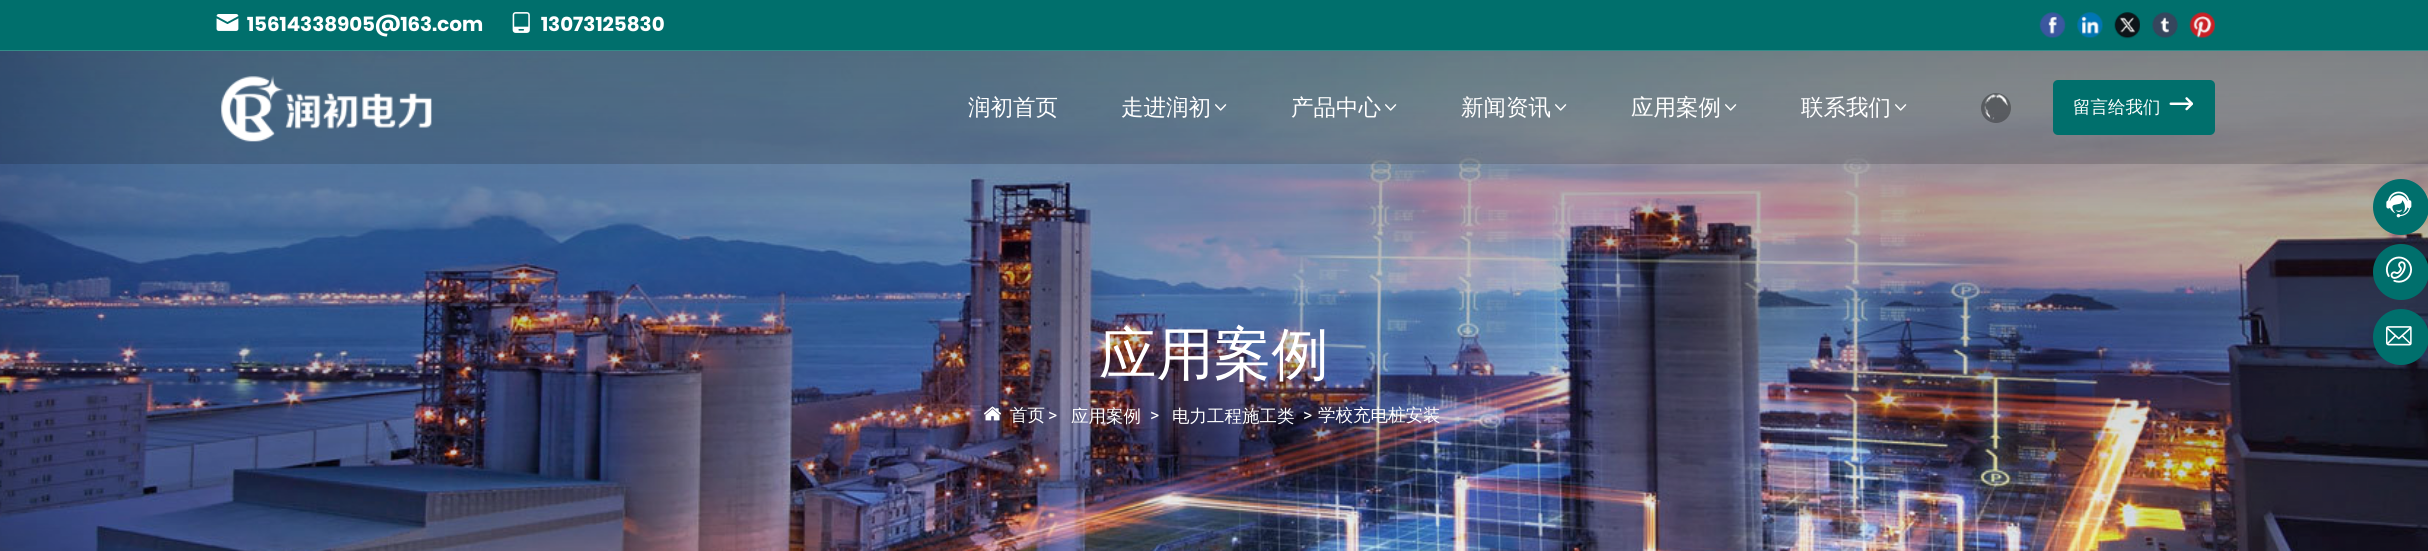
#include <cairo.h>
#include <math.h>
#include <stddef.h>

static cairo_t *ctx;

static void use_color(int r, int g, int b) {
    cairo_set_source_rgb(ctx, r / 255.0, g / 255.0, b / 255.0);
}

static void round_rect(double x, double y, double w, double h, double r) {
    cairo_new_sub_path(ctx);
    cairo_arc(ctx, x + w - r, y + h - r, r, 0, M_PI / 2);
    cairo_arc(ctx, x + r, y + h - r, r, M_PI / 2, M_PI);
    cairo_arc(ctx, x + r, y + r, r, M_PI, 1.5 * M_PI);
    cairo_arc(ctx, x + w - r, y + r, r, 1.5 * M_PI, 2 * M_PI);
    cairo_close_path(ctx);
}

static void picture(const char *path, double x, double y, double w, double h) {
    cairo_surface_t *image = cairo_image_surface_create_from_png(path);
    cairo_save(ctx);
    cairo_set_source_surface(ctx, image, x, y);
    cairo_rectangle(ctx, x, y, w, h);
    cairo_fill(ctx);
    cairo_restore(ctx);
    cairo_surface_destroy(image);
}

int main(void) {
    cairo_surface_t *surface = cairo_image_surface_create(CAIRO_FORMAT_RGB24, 2428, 551);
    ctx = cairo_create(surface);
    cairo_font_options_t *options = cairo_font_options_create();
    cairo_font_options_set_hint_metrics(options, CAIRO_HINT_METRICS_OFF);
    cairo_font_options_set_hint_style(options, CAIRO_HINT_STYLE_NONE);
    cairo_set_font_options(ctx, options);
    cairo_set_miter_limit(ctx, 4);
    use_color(255, 255, 255);
    cairo_paint(ctx);
    picture("img16.png", 0, 51, 2428, 500);
    cairo_set_source_rgba(ctx, 0, 0, 0, 0.15);
    cairo_rectangle(ctx, 0, 51, 2428, 113);
    cairo_fill(ctx);
    use_color(0, 111, 108);
    cairo_rectangle(ctx, 0, 0, 2428, 50);
    cairo_fill(ctx);
    use_color(51, 140, 137);
    cairo_rectangle(ctx, 0, 50, 2428, 1);
    cairo_fill(ctx);
    picture("img1.png", 216, 14, 23, 17);
    cairo_select_font_face(ctx, "Poppins", CAIRO_FONT_SLANT_NORMAL, CAIRO_FONT_WEIGHT_BOLD);
    cairo_set_font_size(ctx, 20);
    use_color(255, 255, 255);
    cairo_move_to(ctx, 247, 31);
    cairo_show_text(ctx, "15614338905@163.com");
    picture("img2.png", 512, 12, 18, 21);
    cairo_move_to(ctx, 541, 31);
    cairo_show_text(ctx, "13073125830");
    picture("img3.png", 2039, 12, 27, 26);
    picture("img4.png", 2077, 12, 26, 26);
    picture("img5.png", 2114, 12, 26, 27);
    picture("img6.png", 2152, 12, 26, 26);
    picture("img7.png", 2189, 12, 26, 26);
    picture("img8.png", 221, 75, 211, 67);
    cairo_select_font_face(ctx, "WenQuanYi Zen Hei Medium", CAIRO_FONT_SLANT_NORMAL, CAIRO_FONT_WEIGHT_NORMAL);
    cairo_set_font_size(ctx, 22.5);
    cairo_move_to(ctx, 968, 115);
    cairo_show_text(ctx, "润初首页");
    cairo_move_to(ctx, 1121, 115);
    cairo_show_text(ctx, "走进润初");
    picture("img9.png", 1215, 104, 12, 7);
    cairo_move_to(ctx, 1291, 115);
    cairo_show_text(ctx, "产品中心");
    picture("img10.png", 1385, 104, 12, 7);
    cairo_move_to(ctx, 1461, 115);
    cairo_show_text(ctx, "新闻资讯");
    picture("img11.png", 1555, 104, 12, 7);
    cairo_move_to(ctx, 1631, 115);
    cairo_show_text(ctx, "应用案例");
    picture("img12.png", 1725, 104, 12, 7);
    cairo_move_to(ctx, 1801, 115);
    cairo_show_text(ctx, "联系我们");
    picture("img13.png", 1895, 104, 12, 7);
    cairo_set_source_rgba(ctx, 0, 0, 0, 0.31);
    cairo_arc(ctx, 1996, 108, 15, 0, 2 * M_PI);
    cairo_fill(ctx);
    picture("img14.png", 1984, 93, 24, 27);
    use_color(0, 111, 108);
    round_rect(2053, 80, 162, 55, 5);
    cairo_fill(ctx);
    cairo_set_font_size(ctx, 17.5);
    use_color(255, 255, 255);
    cairo_move_to(ctx, 2073, 113);
    cairo_show_text(ctx, "留言给我们");
    picture("img15.png", 2169, 97, 24, 14);
    cairo_set_font_size(ctx, 57.5);
    cairo_move_to(ctx, 1099, 374);
    cairo_show_text(ctx, "应用案例");
    picture("img17.png", 984, 406, 17, 15);
    cairo_set_font_size(ctx, 17.5);
    cairo_move_to(ctx, 1010, 421);
    cairo_show_text(ctx, "首页");
    cairo_select_font_face(ctx, "Roboto", CAIRO_FONT_SLANT_NORMAL, CAIRO_FONT_WEIGHT_NORMAL);
    cairo_move_to(ctx, 1048, 421);
    cairo_show_text(ctx, ">");
    cairo_select_font_face(ctx, "WenQuanYi Zen Hei Medium", CAIRO_FONT_SLANT_NORMAL, CAIRO_FONT_WEIGHT_NORMAL);
    cairo_move_to(ctx, 1071, 422);
    cairo_show_text(ctx, "应用案例");
    cairo_select_font_face(ctx, "Roboto", CAIRO_FONT_SLANT_NORMAL, CAIRO_FONT_WEIGHT_NORMAL);
    cairo_move_to(ctx, 1150, 421);
    cairo_show_text(ctx, ">");
    cairo_select_font_face(ctx, "WenQuanYi Zen Hei Medium", CAIRO_FONT_SLANT_NORMAL, CAIRO_FONT_WEIGHT_NORMAL);
    cairo_move_to(ctx, 1172, 422);
    cairo_show_text(ctx, "电力工程施工类");
    cairo_select_font_face(ctx, "Roboto", CAIRO_FONT_SLANT_NORMAL, CAIRO_FONT_WEIGHT_NORMAL);
    cairo_move_to(ctx, 1303, 421);
    cairo_show_text(ctx, ">");
    cairo_select_font_face(ctx, "WenQuanYi Zen Hei Medium", CAIRO_FONT_SLANT_NORMAL, CAIRO_FONT_WEIGHT_NORMAL);
    cairo_move_to(ctx, 1318, 421);
    cairo_show_text(ctx, "学校充电桩安装");
    use_color(0, 111, 108);
    cairo_new_path(ctx);
    cairo_arc(ctx, 2401, 207, 28, 0, 2 * M_PI);
    cairo_fill(ctx);
    picture("img18.png", 2386, 191, 26, 27);
    cairo_arc(ctx, 2401, 272, 28, 0, 2 * M_PI);
    cairo_fill(ctx);
    picture("img19.png", 2385, 256, 27, 27);
    cairo_arc(ctx, 2401, 337, 28, 0, 2 * M_PI);
    cairo_fill(ctx);
    picture("img20.png", 2386, 326, 26, 20);
    cairo_surface_write_to_png(surface, "result.png");
    cairo_font_options_destroy(options);
    cairo_destroy(ctx);
    cairo_surface_destroy(surface);
    return 0;
}
